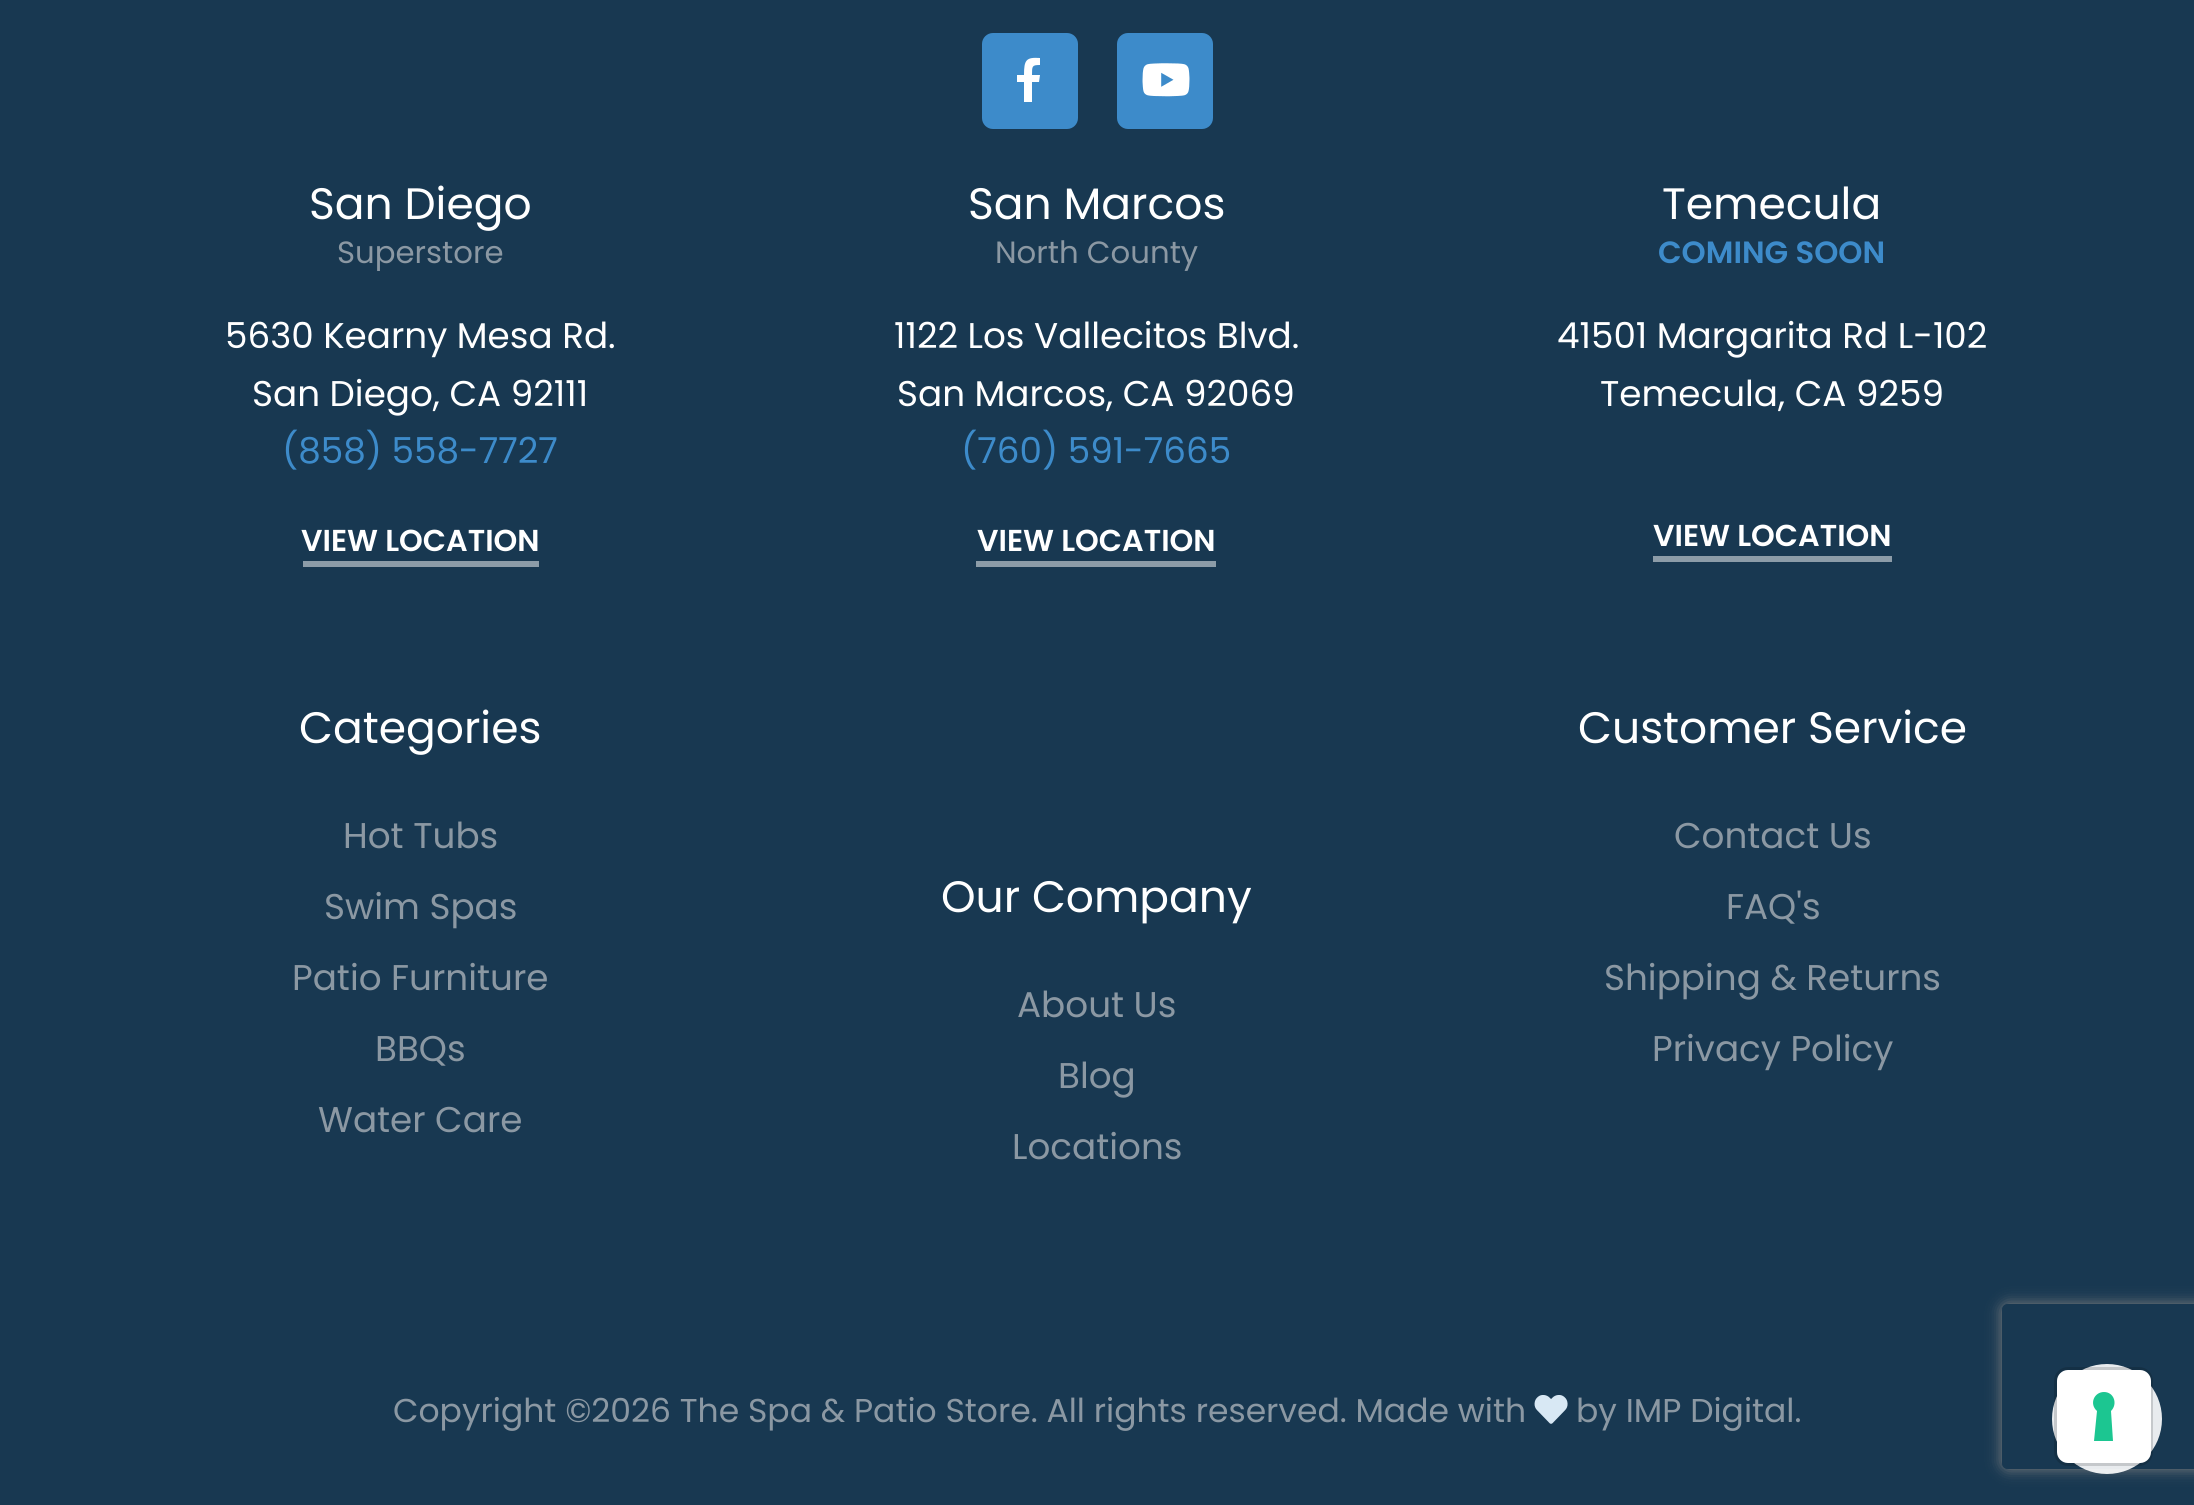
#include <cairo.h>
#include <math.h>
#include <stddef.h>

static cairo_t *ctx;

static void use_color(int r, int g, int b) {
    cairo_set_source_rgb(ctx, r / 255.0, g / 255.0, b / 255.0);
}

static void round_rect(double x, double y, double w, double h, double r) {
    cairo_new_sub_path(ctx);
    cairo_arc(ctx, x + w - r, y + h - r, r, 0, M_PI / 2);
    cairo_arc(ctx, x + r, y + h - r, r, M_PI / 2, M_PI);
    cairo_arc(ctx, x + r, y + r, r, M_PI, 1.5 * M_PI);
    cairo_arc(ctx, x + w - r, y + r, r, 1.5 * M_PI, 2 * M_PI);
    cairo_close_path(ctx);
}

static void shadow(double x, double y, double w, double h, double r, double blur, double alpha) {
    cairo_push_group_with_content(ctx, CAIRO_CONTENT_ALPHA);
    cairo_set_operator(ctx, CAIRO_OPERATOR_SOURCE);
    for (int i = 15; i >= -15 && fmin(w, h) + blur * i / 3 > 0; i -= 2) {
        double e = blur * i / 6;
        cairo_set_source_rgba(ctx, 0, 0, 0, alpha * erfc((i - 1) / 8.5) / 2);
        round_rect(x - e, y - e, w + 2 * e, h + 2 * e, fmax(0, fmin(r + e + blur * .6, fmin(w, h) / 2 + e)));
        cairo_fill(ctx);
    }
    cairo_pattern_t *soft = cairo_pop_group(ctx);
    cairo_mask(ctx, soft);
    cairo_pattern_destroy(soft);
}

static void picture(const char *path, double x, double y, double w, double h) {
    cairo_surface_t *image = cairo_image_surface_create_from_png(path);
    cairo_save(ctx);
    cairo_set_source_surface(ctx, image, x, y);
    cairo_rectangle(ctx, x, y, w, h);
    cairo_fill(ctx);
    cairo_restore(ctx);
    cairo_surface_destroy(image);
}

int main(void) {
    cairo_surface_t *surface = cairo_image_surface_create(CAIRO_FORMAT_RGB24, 2194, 1505);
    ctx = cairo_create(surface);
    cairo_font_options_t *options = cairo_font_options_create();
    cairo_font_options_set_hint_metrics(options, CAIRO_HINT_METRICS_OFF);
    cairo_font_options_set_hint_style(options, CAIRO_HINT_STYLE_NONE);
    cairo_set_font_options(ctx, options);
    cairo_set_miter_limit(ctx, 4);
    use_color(24, 56, 81);
    cairo_paint(ctx);
    use_color(61, 139, 202);
    round_rect(982, 33, 96, 96, 11);
    cairo_fill(ctx);
    use_color(255, 255, 255);
    cairo_new_path(ctx);
    cairo_move_to(ctx, 1039, 82);
    cairo_line_to(ctx, 1032, 82);
    cairo_line_to(ctx, 1032, 102);
    cairo_line_to(ctx, 1024, 102);
    cairo_line_to(ctx, 1024, 82);
    cairo_line_to(ctx, 1017, 82);
    cairo_line_to(ctx, 1017, 75);
    cairo_line_to(ctx, 1024, 75);
    cairo_curve_to(ctx, 1024, 60, 1026, 57, 1040, 58);
    cairo_line_to(ctx, 1040, 65);
    cairo_curve_to(ctx, 1032, 65, 1032, 66, 1032, 75);
    cairo_line_to(ctx, 1040, 75);
    cairo_close_path(ctx);
    cairo_fill(ctx);
    use_color(61, 139, 202);
    round_rect(1117, 33, 96, 96, 11);
    cairo_fill(ctx);
    picture("img1.png", 1142, 63, 48, 34);
    cairo_select_font_face(ctx, "Poppins", CAIRO_FONT_SLANT_NORMAL, CAIRO_FONT_WEIGHT_NORMAL);
    cairo_set_font_size(ctx, 44);
    use_color(255, 255, 255);
    cairo_move_to(ctx, 309, 219);
    cairo_show_text(ctx, "San Diego");
    cairo_set_font_size(ctx, 30.75);
    use_color(139, 152, 163);
    cairo_move_to(ctx, 337, 263);
    cairo_show_text(ctx, "Superstore");
    cairo_set_font_size(ctx, 35.75);
    use_color(255, 255, 255);
    cairo_move_to(ctx, 225, 348);
    cairo_show_text(ctx, "5630 Kearny Mesa Rd.");
    cairo_move_to(ctx, 252, 406);
    cairo_show_text(ctx, "San Diego, CA 92111");
    use_color(61, 139, 202);
    cairo_move_to(ctx, 282, 463);
    cairo_show_text(ctx, "(858) 558-7727");
    use_color(140, 156, 168);
    cairo_rectangle(ctx, 303, 561, 236, 6);
    cairo_fill(ctx);
    cairo_select_font_face(ctx, "Poppins SemiBold", CAIRO_FONT_SLANT_NORMAL, CAIRO_FONT_WEIGHT_NORMAL);
    cairo_set_font_size(ctx, 30.25);
    use_color(255, 255, 255);
    cairo_move_to(ctx, 301, 551);
    cairo_show_text(ctx, "VIEW LOCATION");
    cairo_select_font_face(ctx, "Poppins", CAIRO_FONT_SLANT_NORMAL, CAIRO_FONT_WEIGHT_NORMAL);
    cairo_set_font_size(ctx, 44);
    cairo_move_to(ctx, 968, 219);
    cairo_show_text(ctx, "San Marcos");
    cairo_set_font_size(ctx, 30.75);
    use_color(139, 152, 163);
    cairo_move_to(ctx, 995, 263);
    cairo_show_text(ctx, "North County");
    cairo_set_font_size(ctx, 35.75);
    use_color(255, 255, 255);
    cairo_move_to(ctx, 894, 348);
    cairo_show_text(ctx, "1122 Los Vallecitos Blvd.");
    cairo_move_to(ctx, 897, 406);
    cairo_show_text(ctx, "San Marcos, CA 92069");
    use_color(61, 139, 202);
    cairo_move_to(ctx, 961, 463);
    cairo_show_text(ctx, "(760) 591-7665");
    use_color(140, 156, 168);
    cairo_rectangle(ctx, 976, 561, 240, 6);
    cairo_fill(ctx);
    cairo_select_font_face(ctx, "Poppins SemiBold", CAIRO_FONT_SLANT_NORMAL, CAIRO_FONT_WEIGHT_NORMAL);
    cairo_set_font_size(ctx, 30.25);
    use_color(255, 255, 255);
    cairo_move_to(ctx, 977, 551);
    cairo_show_text(ctx, "VIEW LOCATION");
    cairo_select_font_face(ctx, "Poppins", CAIRO_FONT_SLANT_NORMAL, CAIRO_FONT_WEIGHT_NORMAL);
    cairo_set_font_size(ctx, 44);
    cairo_move_to(ctx, 1662, 219);
    cairo_show_text(ctx, "Temecula");
    cairo_select_font_face(ctx, "Poppins SemiBold", CAIRO_FONT_SLANT_NORMAL, CAIRO_FONT_WEIGHT_NORMAL);
    cairo_set_font_size(ctx, 30.75);
    use_color(61, 139, 202);
    cairo_move_to(ctx, 1658, 263);
    cairo_show_text(ctx, "COMING SOON");
    cairo_select_font_face(ctx, "Poppins", CAIRO_FONT_SLANT_NORMAL, CAIRO_FONT_WEIGHT_NORMAL);
    cairo_set_font_size(ctx, 35.75);
    use_color(255, 255, 255);
    cairo_move_to(ctx, 1557, 348);
    cairo_show_text(ctx, "41501 Margarita Rd L-102");
    cairo_move_to(ctx, 1600, 406);
    cairo_show_text(ctx, "Temecula, CA 9259");
    use_color(140, 156, 168);
    cairo_rectangle(ctx, 1653, 556, 239, 6);
    cairo_fill(ctx);
    cairo_select_font_face(ctx, "Poppins SemiBold", CAIRO_FONT_SLANT_NORMAL, CAIRO_FONT_WEIGHT_NORMAL);
    cairo_set_font_size(ctx, 30.25);
    use_color(255, 255, 255);
    cairo_move_to(ctx, 1653, 546);
    cairo_show_text(ctx, "VIEW LOCATION");
    cairo_select_font_face(ctx, "Poppins", CAIRO_FONT_SLANT_NORMAL, CAIRO_FONT_WEIGHT_NORMAL);
    cairo_set_font_size(ctx, 44);
    cairo_move_to(ctx, 299, 743);
    cairo_show_text(ctx, "Categories");
    cairo_set_font_size(ctx, 35.75);
    use_color(139, 152, 163);
    cairo_move_to(ctx, 343, 848);
    cairo_show_text(ctx, "Hot Tubs");
    cairo_move_to(ctx, 324, 919);
    cairo_show_text(ctx, "Swim Spas");
    cairo_move_to(ctx, 292, 990);
    cairo_show_text(ctx, "Patio Furniture");
    cairo_move_to(ctx, 375, 1061);
    cairo_show_text(ctx, "BBQs");
    cairo_move_to(ctx, 318, 1132);
    cairo_show_text(ctx, "Water Care");
    cairo_set_font_size(ctx, 44);
    use_color(255, 255, 255);
    cairo_move_to(ctx, 941, 912);
    cairo_show_text(ctx, "Our Company");
    cairo_set_font_size(ctx, 35.75);
    use_color(139, 152, 163);
    cairo_move_to(ctx, 1017, 1017);
    cairo_show_text(ctx, "About Us");
    cairo_move_to(ctx, 1058, 1088);
    cairo_show_text(ctx, "Blog");
    cairo_move_to(ctx, 1012, 1159);
    cairo_show_text(ctx, "Locations");
    cairo_set_font_size(ctx, 44);
    use_color(255, 255, 255);
    cairo_move_to(ctx, 1578, 743);
    cairo_show_text(ctx, "Customer Service");
    cairo_set_font_size(ctx, 35.75);
    use_color(139, 152, 163);
    cairo_move_to(ctx, 1674, 848);
    cairo_show_text(ctx, "Contact Us");
    cairo_move_to(ctx, 1726, 919);
    cairo_show_text(ctx, "FAQ's");
    cairo_move_to(ctx, 1604, 990);
    cairo_show_text(ctx, "Shipping & Returns");
    cairo_move_to(ctx, 1652, 1061);
    cairo_show_text(ctx, "Privacy Policy");
    cairo_set_font_size(ctx, 33);
    cairo_move_to(ctx, 393, 1422);
    cairo_show_text(ctx, "Copyright ©2026 The Spa & Patio Store. All rights reserved. Made with");
    picture("img2.png", 1534, 1395, 34, 29);
    cairo_move_to(ctx, 1576, 1422);
    cairo_show_text(ctx, "by IMP Digital.");
    cairo_save(ctx);
    cairo_set_fill_rule(ctx, CAIRO_FILL_RULE_EVEN_ODD);
    cairo_new_path(ctx);
    cairo_move_to(ctx, 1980, 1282);
    cairo_line_to(ctx, 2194, 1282);
    cairo_line_to(ctx, 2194, 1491);
    cairo_line_to(ctx, 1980, 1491);
    cairo_close_path(ctx);
    cairo_move_to(ctx, 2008, 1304);
    cairo_line_to(ctx, 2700, 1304);
    cairo_curve_to(ctx, 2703.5, 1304, 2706, 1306.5, 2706, 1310);
    cairo_line_to(ctx, 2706, 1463);
    cairo_curve_to(ctx, 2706, 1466.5, 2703.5, 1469, 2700, 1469);
    cairo_line_to(ctx, 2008, 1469);
    cairo_curve_to(ctx, 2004.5, 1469, 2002, 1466.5, 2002, 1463);
    cairo_line_to(ctx, 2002, 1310);
    cairo_curve_to(ctx, 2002, 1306.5, 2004.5, 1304, 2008, 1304);
    cairo_close_path(ctx);
    cairo_clip(ctx);
    use_color(128, 128, 128);
    shadow(2002, 1304, 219, 165, 6, 7, 1);
    cairo_restore(ctx);
    cairo_set_source_rgba(ctx, 1, 1, 1, 0.9);
    cairo_arc(ctx, 2107, 1419, 55, 0, 2 * M_PI);
    cairo_fill(ctx);
    round_rect(2055.5, 1368.5, 96, 96, 12.5);
    cairo_set_source_rgba(ctx, 0, 0, 0, 0.15);
    cairo_set_line_width(ctx, 3);
    cairo_stroke(ctx);
    use_color(255, 255, 255);
    round_rect(2057, 1370, 94, 93, 11);
    cairo_fill(ctx);
    use_color(28, 198, 145);
    cairo_set_fill_rule(ctx, CAIRO_FILL_RULE_EVEN_ODD);
    cairo_new_path(ctx);
    cairo_move_to(ctx, 2104, 1392);
    cairo_curve_to(ctx, 2114, 1392, 2118, 1404, 2111, 1411);
    cairo_line_to(ctx, 2113, 1441);
    cairo_line_to(ctx, 2094, 1441);
    cairo_line_to(ctx, 2097, 1411);
    cairo_curve_to(ctx, 2089, 1404, 2094, 1392, 2104, 1392);
    cairo_close_path(ctx);
    cairo_fill(ctx);
    cairo_surface_write_to_png(surface, "result.png");
    cairo_font_options_destroy(options);
    cairo_destroy(ctx);
    cairo_surface_destroy(surface);
    return 0;
}
